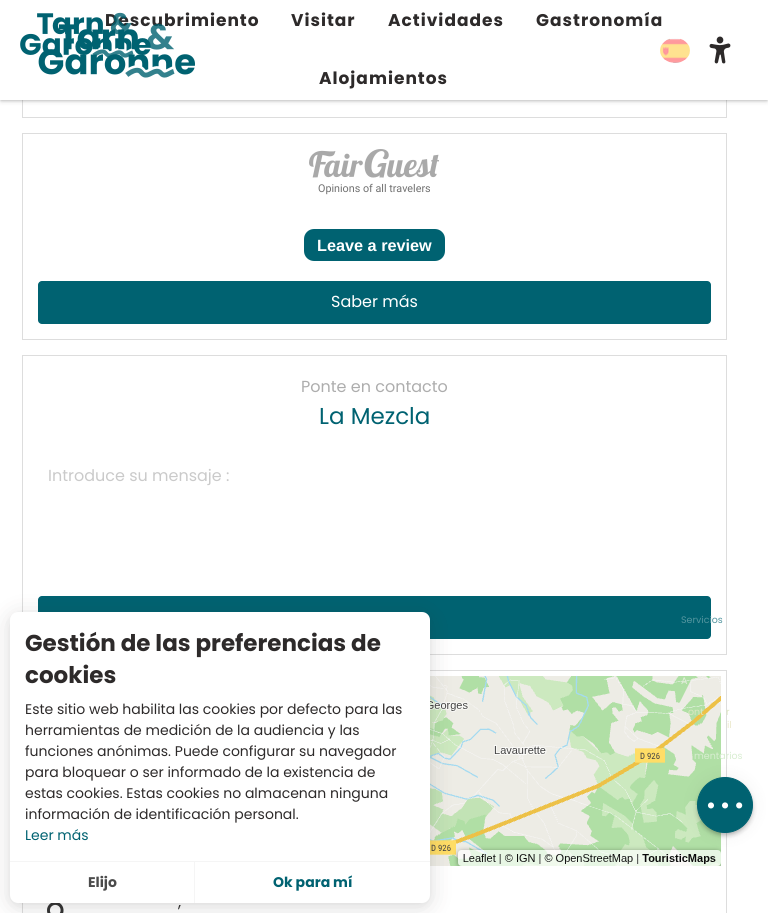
#include <cairo.h>
#include <math.h>
#include <stddef.h>

static cairo_t *ctx;

static void use_color(int r, int g, int b) {
    cairo_set_source_rgb(ctx, r / 255.0, g / 255.0, b / 255.0);
}

static void spaced_text(double x, double y, const char *s, double letter, double word) {
    cairo_move_to(ctx, x, y);
    while (*s) {
        char ch[5] = {0};
        int n = 0;
        do ch[n++] = *s++; while ((*s & 0xC0) == 0x80);
        cairo_show_text(ctx, ch);
        cairo_rel_move_to(ctx, letter + word * (*ch == ' '), 0);
    }
}

static void round_rect(double x, double y, double w, double h, double r) {
    cairo_new_sub_path(ctx);
    cairo_arc(ctx, x + w - r, y + h - r, r, 0, M_PI / 2);
    cairo_arc(ctx, x + r, y + h - r, r, M_PI / 2, M_PI);
    cairo_arc(ctx, x + r, y + r, r, M_PI, 1.5 * M_PI);
    cairo_arc(ctx, x + w - r, y + r, r, 1.5 * M_PI, 2 * M_PI);
    cairo_close_path(ctx);
}

static void shadow(double x, double y, double w, double h, double r, double blur, double alpha) {
    cairo_push_group_with_content(ctx, CAIRO_CONTENT_ALPHA);
    cairo_set_operator(ctx, CAIRO_OPERATOR_SOURCE);
    for (int i = 15; i >= -15 && fmin(w, h) + blur * i / 3 > 0; i -= 2) {
        double e = blur * i / 6;
        cairo_set_source_rgba(ctx, 0, 0, 0, alpha * erfc((i - 1) / 8.5) / 2);
        round_rect(x - e, y - e, w + 2 * e, h + 2 * e, fmax(0, fmin(r + e + blur * .6, fmin(w, h) / 2 + e)));
        cairo_fill(ctx);
    }
    cairo_pattern_t *soft = cairo_pop_group(ctx);
    cairo_mask(ctx, soft);
    cairo_pattern_destroy(soft);
}

static void picture(const char *path, double x, double y, double w, double h) {
    cairo_surface_t *image = cairo_image_surface_create_from_png(path);
    cairo_save(ctx);
    cairo_set_source_surface(ctx, image, x, y);
    cairo_rectangle(ctx, x, y, w, h);
    cairo_fill(ctx);
    cairo_restore(ctx);
    cairo_surface_destroy(image);
}

int main(void) {
    cairo_surface_t *surface = cairo_image_surface_create(CAIRO_FORMAT_RGB24, 768, 913);
    ctx = cairo_create(surface);
    cairo_font_options_t *options = cairo_font_options_create();
    cairo_font_options_set_hint_metrics(options, CAIRO_HINT_METRICS_OFF);
    cairo_font_options_set_hint_style(options, CAIRO_HINT_STYLE_NONE);
    cairo_set_font_options(ctx, options);
    cairo_set_miter_limit(ctx, 4);
    use_color(255, 255, 255);
    cairo_paint(ctx);
    cairo_rectangle(ctx, 22.5, 56.5, 704, 61);
    use_color(221, 221, 221);
    cairo_set_line_width(ctx, 1);
    cairo_stroke(ctx);
    use_color(75, 75, 75);
    shadow(1, 2, 766, 98, 0, 1.5, 0.3);
    shadow(1, 3, 766, 98, 0, 2.5, 0.25);
    use_color(255, 255, 255);
    cairo_rectangle(ctx, 0, 0, 768, 100);
    cairo_fill(ctx);
    cairo_select_font_face(ctx, "Poppins", CAIRO_FONT_SLANT_NORMAL, CAIRO_FONT_WEIGHT_BOLD);
    cairo_set_font_size(ctx, 17);
    use_color(45, 42, 42);
    spaced_text(105, 26, "Descubrimiento", 1, 0);
    spaced_text(291, 26, "Visitar", 1, 0);
    spaced_text(388, 26, "Actividades", 1, 0);
    spaced_text(536, 26, "Gastronomía", 1, 0);
    picture("img1.png", 38, 24, 157, 54);
    spaced_text(319, 84, "Alojamientos", 1, 0);
    picture("img2.png", 660, 38, 30, 25);
    picture("img3.png", 709, 36, 22, 28);
    picture("img4.png", 20, 12, 131, 46);
    cairo_rectangle(ctx, 22.5, 133.5, 704, 206);
    use_color(221, 221, 221);
    cairo_stroke(ctx);
    picture("img5.png", 309, 149, 130, 29);
    cairo_select_font_face(ctx, "Roboto", CAIRO_FONT_SLANT_NORMAL, CAIRO_FONT_WEIGHT_NORMAL);
    cairo_set_font_size(ctx, 10.75);
    use_color(112, 112, 112);
    cairo_move_to(ctx, 318, 192);
    cairo_show_text(ctx, "Opinions of all travelers");
    use_color(0, 98, 113);
    round_rect(304, 229, 141, 32, 10);
    cairo_fill(ctx);
    cairo_select_font_face(ctx, "Liberation Sans", CAIRO_FONT_SLANT_NORMAL, CAIRO_FONT_WEIGHT_BOLD);
    cairo_set_font_size(ctx, 16.25);
    use_color(255, 255, 255);
    cairo_move_to(ctx, 317, 251);
    cairo_show_text(ctx, "Leave a review");
    use_color(0, 98, 113);
    round_rect(38, 281, 673, 43, 4);
    cairo_fill(ctx);
    cairo_select_font_face(ctx, "Poppins", CAIRO_FONT_SLANT_NORMAL, CAIRO_FONT_WEIGHT_NORMAL);
    cairo_set_font_size(ctx, 16);
    use_color(255, 255, 255);
    cairo_move_to(ctx, 331, 307);
    cairo_show_text(ctx, "Saber más");
    cairo_rectangle(ctx, 22.5, 355.5, 704, 299);
    use_color(221, 221, 221);
    cairo_stroke(ctx);
    use_color(173, 173, 173);
    cairo_move_to(ctx, 301, 392);
    cairo_show_text(ctx, "Ponte en contacto");
    cairo_set_font_size(ctx, 23);
    use_color(0, 98, 113);
    cairo_move_to(ctx, 319, 424);
    cairo_show_text(ctx, "La Mezcla");
    cairo_set_font_size(ctx, 16);
    use_color(202, 202, 202);
    cairo_move_to(ctx, 48, 481);
    cairo_show_text(ctx, "Introduce su mensaje :");
    use_color(0, 98, 113);
    round_rect(38, 596, 673, 43, 4);
    cairo_fill(ctx);
    cairo_rectangle(ctx, 22.5, 670.5, 704, 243);
    use_color(221, 221, 221);
    cairo_stroke(ctx);
    picture("img6.png", 430, 676, 291, 190);
    picture("img7.png", 47, 903, 17, 10);
    use_color(51, 51, 51);
    cairo_move_to(ctx, 178, 907);
    cairo_show_text(ctx, ",");
    cairo_set_font_size(ctx, 9.5);
    use_color(83, 149, 159);
    cairo_move_to(ctx, 681, 623);
    cairo_show_text(ctx, "Servicios");
    use_color(229, 237, 222);
    cairo_move_to(ctx, 681, 684);
    cairo_show_text(ctx, "A");
    use_color(220, 230, 193);
    cairo_move_to(ctx, 688, 715);
    cairo_show_text(ctx, "ont");
    cairo_move_to(ctx, 726, 715);
    cairo_show_text(ctx, "r");
    use_color(235, 232, 203);
    cairo_move_to(ctx, 727, 728);
    cairo_show_text(ctx, "il");
    use_color(216, 237, 209);
    cairo_move_to(ctx, 694, 759);
    cairo_show_text(ctx, "mentarios");
    use_color(0, 0, 0);
    shadow(698, 781, 54, 54, 27, 2.5, 0.3);
    shadow(697, 778, 56, 56, 28, 9, 0.06);
    use_color(0, 98, 113);
    cairo_arc(ctx, 725, 805, 27.5, 0, 2 * M_PI);
    cairo_fill_preserve(ctx);
    cairo_stroke(ctx);
    picture("img8.png", 707, 802, 36, 7);
    use_color(45, 42, 42);
    shadow(10, 614, 420, 291, 8, 3, 0.05);
    shadow(10, 616, 420, 291, 8, 12, 0.15);
    use_color(255, 255, 255);
    round_rect(10, 612, 420, 291, 8);
    cairo_fill(ctx);
    cairo_select_font_face(ctx, "Poppins", CAIRO_FONT_SLANT_NORMAL, CAIRO_FONT_WEIGHT_BOLD);
    cairo_set_font_size(ctx, 23);
    use_color(45, 42, 42);
    cairo_move_to(ctx, 25, 651);
    cairo_show_text(ctx, "Gestión de las preferencias de");
    cairo_move_to(ctx, 25, 683);
    cairo_show_text(ctx, "cookies");
    cairo_select_font_face(ctx, "Poppins", CAIRO_FONT_SLANT_NORMAL, CAIRO_FONT_WEIGHT_NORMAL);
    cairo_set_font_size(ctx, 14);
    cairo_move_to(ctx, 25, 714);
    cairo_show_text(ctx, "Este sitio web habilita las cookies por defecto para las");
    cairo_move_to(ctx, 25, 735);
    cairo_show_text(ctx, "herramientas de medición de la audiencia y las");
    cairo_move_to(ctx, 25, 756);
    cairo_show_text(ctx, "funciones anónimas. Puede configurar su navegador");
    cairo_move_to(ctx, 25, 777);
    cairo_show_text(ctx, "para bloquear o ser informado de la existencia de");
    cairo_move_to(ctx, 25, 798);
    cairo_show_text(ctx, "estas cookies. Estas cookies no almacenan ninguna");
    cairo_move_to(ctx, 25, 819);
    cairo_show_text(ctx, "información de identificación personal.");
    use_color(0, 98, 113);
    cairo_move_to(ctx, 25, 840);
    cairo_show_text(ctx, "Leer más");
    use_color(245, 245, 245);
    cairo_rectangle(ctx, 10, 861, 420, 1);
    cairo_fill(ctx);
    cairo_rectangle(ctx, 194, 862, 1, 41);
    cairo_fill(ctx);
    cairo_select_font_face(ctx, "Poppins", CAIRO_FONT_SLANT_NORMAL, CAIRO_FONT_WEIGHT_BOLD);
    use_color(75, 75, 75);
    cairo_move_to(ctx, 88, 887);
    cairo_show_text(ctx, "Elijo");
    use_color(0, 98, 113);
    cairo_move_to(ctx, 273, 887);
    cairo_show_text(ctx, "Ok para mí");
    cairo_surface_write_to_png(surface, "result.png");
    cairo_font_options_destroy(options);
    cairo_destroy(ctx);
    cairo_surface_destroy(surface);
    return 0;
}
